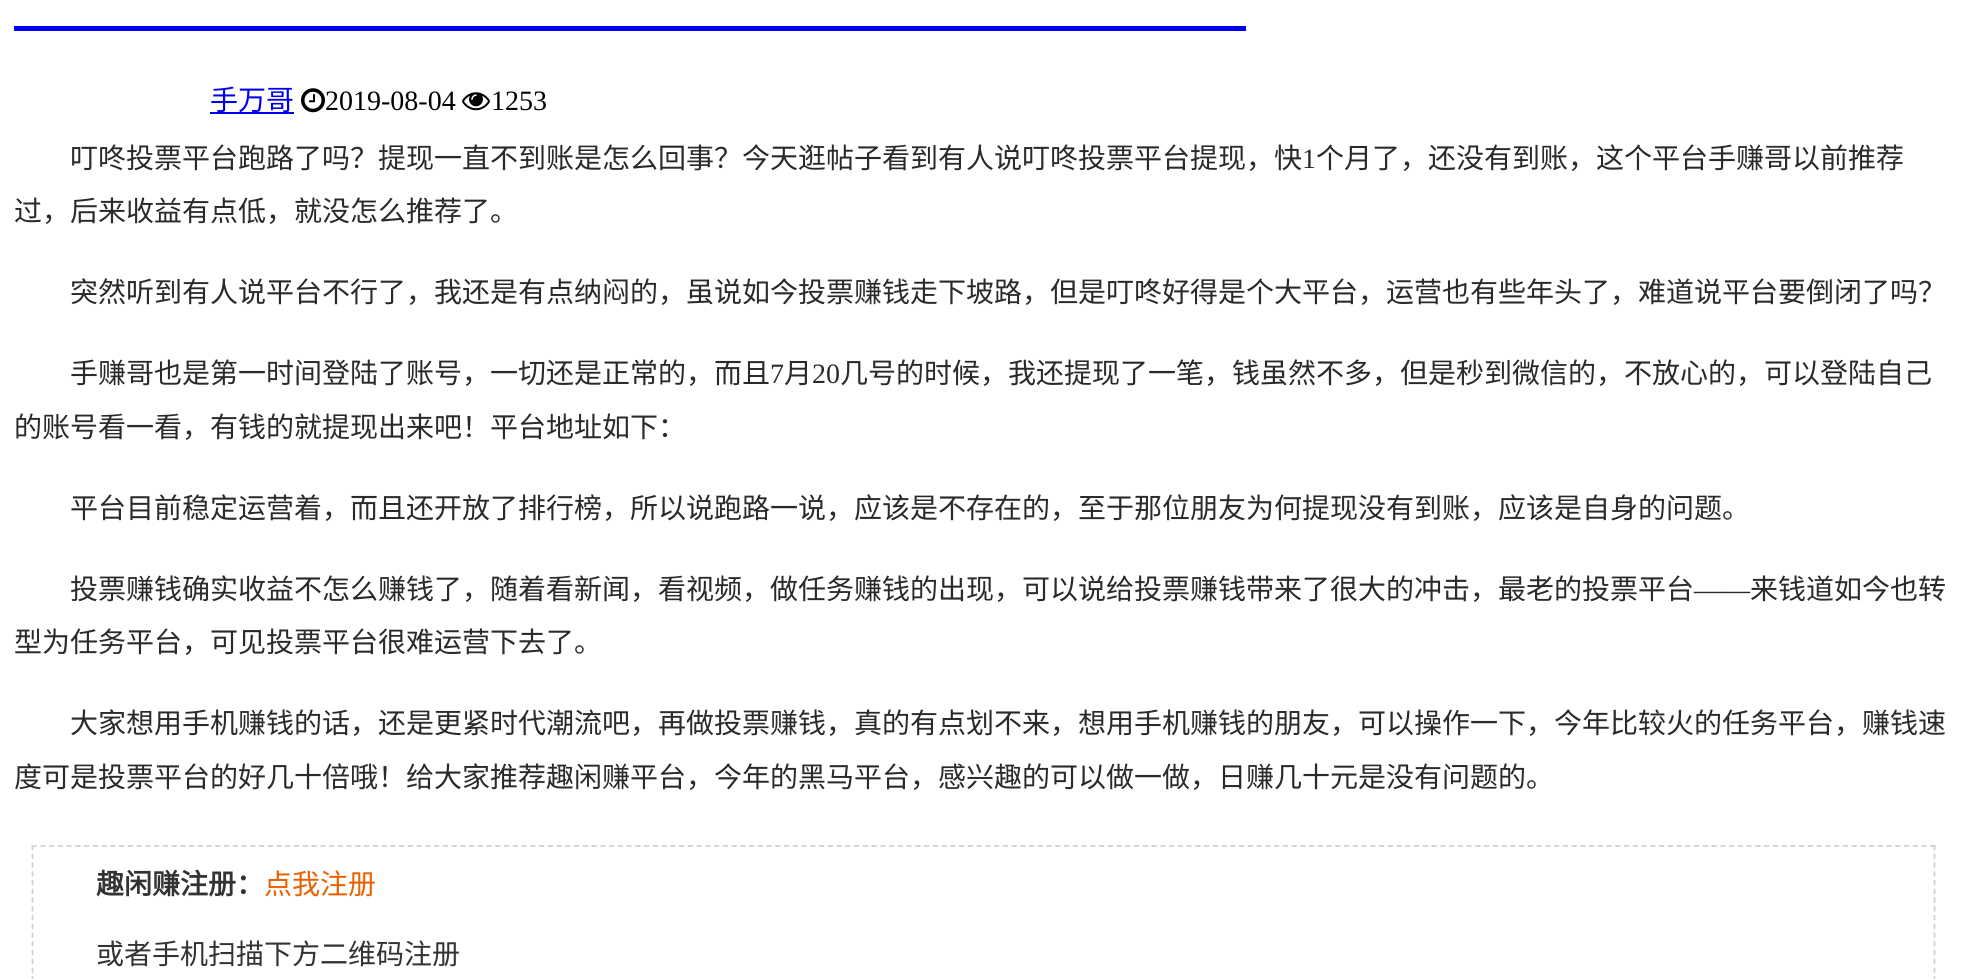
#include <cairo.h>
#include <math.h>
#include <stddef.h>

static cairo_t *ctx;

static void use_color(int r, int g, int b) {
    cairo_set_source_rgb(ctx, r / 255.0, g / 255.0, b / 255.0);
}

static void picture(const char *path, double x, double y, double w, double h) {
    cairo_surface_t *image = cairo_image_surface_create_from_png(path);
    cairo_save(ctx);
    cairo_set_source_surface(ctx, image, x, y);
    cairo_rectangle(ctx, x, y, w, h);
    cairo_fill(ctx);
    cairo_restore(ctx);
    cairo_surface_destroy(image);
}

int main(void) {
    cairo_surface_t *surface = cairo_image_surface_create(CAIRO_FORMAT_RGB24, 1966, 979);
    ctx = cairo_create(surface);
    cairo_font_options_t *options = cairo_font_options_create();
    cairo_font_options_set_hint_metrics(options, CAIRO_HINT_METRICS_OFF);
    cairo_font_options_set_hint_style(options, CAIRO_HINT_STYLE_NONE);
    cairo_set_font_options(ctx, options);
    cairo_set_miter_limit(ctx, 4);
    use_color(255, 255, 255);
    cairo_paint(ctx);
    use_color(0, 0, 238);
    cairo_rectangle(ctx, 14, 26, 1232, 5);
    cairo_fill(ctx);
    cairo_rectangle(ctx, 210, 112, 84, 2);
    cairo_fill(ctx);
    cairo_select_font_face(ctx, "Noto Sans CJK SC", CAIRO_FONT_SLANT_NORMAL, CAIRO_FONT_WEIGHT_NORMAL);
    cairo_set_font_size(ctx, 28);
    cairo_move_to(ctx, 210, 110);
    cairo_show_text(ctx, "手万哥");
    picture("img1.png", 301, 88, 24, 25);
    cairo_select_font_face(ctx, "Liberation Serif", CAIRO_FONT_SLANT_NORMAL, CAIRO_FONT_WEIGHT_NORMAL);
    use_color(0, 0, 0);
    cairo_move_to(ctx, 325, 110);
    cairo_show_text(ctx, "2019-08-04");
    picture("img2.png", 462, 92, 28, 19);
    cairo_move_to(ctx, 491, 110);
    cairo_show_text(ctx, "1253");
    cairo_select_font_face(ctx, "Noto Sans CJK SC", CAIRO_FONT_SLANT_NORMAL, CAIRO_FONT_WEIGHT_NORMAL);
    use_color(42, 42, 42);
    cairo_move_to(ctx, 70, 168);
    cairo_show_text(ctx, "叮咚投票平台跑路了吗？提现一直不到账是怎么回事？今天逛帖子看到有人说叮咚投票平台提现，快");
    cairo_select_font_face(ctx, "Liberation Serif", CAIRO_FONT_SLANT_NORMAL, CAIRO_FONT_WEIGHT_NORMAL);
    cairo_move_to(ctx, 1302, 168);
    cairo_show_text(ctx, "1");
    cairo_select_font_face(ctx, "Noto Sans CJK SC", CAIRO_FONT_SLANT_NORMAL, CAIRO_FONT_WEIGHT_NORMAL);
    cairo_move_to(ctx, 1316, 168);
    cairo_show_text(ctx, "个月了，还没有到账，这个平台手赚哥以前推荐");
    cairo_move_to(ctx, 14, 221);
    cairo_show_text(ctx, "过，后来收益有点低，就没怎么推荐了。");
    cairo_move_to(ctx, 70, 302);
    cairo_show_text(ctx, "突然听到有人说平台不行了，我还是有点纳闷的，虽说如今投票赚钱走下坡路，但是叮咚好得是个大平台，运营也有些年头了，难道说平台要倒闭了吗？");
    cairo_move_to(ctx, 70, 383);
    cairo_show_text(ctx, "手赚哥也是第一时间登陆了账号，一切还是正常的，而且");
    cairo_select_font_face(ctx, "Liberation Serif", CAIRO_FONT_SLANT_NORMAL, CAIRO_FONT_WEIGHT_NORMAL);
    cairo_move_to(ctx, 770, 383);
    cairo_show_text(ctx, "7");
    cairo_select_font_face(ctx, "Noto Sans CJK SC", CAIRO_FONT_SLANT_NORMAL, CAIRO_FONT_WEIGHT_NORMAL);
    cairo_move_to(ctx, 784, 383);
    cairo_show_text(ctx, "月");
    cairo_select_font_face(ctx, "Liberation Serif", CAIRO_FONT_SLANT_NORMAL, CAIRO_FONT_WEIGHT_NORMAL);
    cairo_move_to(ctx, 812, 383);
    cairo_show_text(ctx, "20");
    cairo_select_font_face(ctx, "Noto Sans CJK SC", CAIRO_FONT_SLANT_NORMAL, CAIRO_FONT_WEIGHT_NORMAL);
    cairo_move_to(ctx, 840, 383);
    cairo_show_text(ctx, "几号的时候，我还提现了一笔，钱虽然不多，但是秒到微信的，不放心的，可以登陆自己");
    cairo_move_to(ctx, 14, 437);
    cairo_show_text(ctx, "的账号看一看，有钱的就提现出来吧！平台地址如下：");
    cairo_move_to(ctx, 70, 518);
    cairo_show_text(ctx, "平台目前稳定运营着，而且还开放了排行榜，所以说跑路一说，应该是不存在的，至于那位朋友为何提现没有到账，应该是自身的问题。");
    cairo_move_to(ctx, 70, 599);
    cairo_show_text(ctx, "投票赚钱确实收益不怎么赚钱了，随着看新闻，看视频，做任务赚钱的出现，可以说给投票赚钱带来了很大的冲击，最老的投票平台");
    cairo_select_font_face(ctx, "Liberation Serif", CAIRO_FONT_SLANT_NORMAL, CAIRO_FONT_WEIGHT_NORMAL);
    cairo_move_to(ctx, 1694, 599);
    cairo_show_text(ctx, "——");
    cairo_select_font_face(ctx, "Noto Sans CJK SC", CAIRO_FONT_SLANT_NORMAL, CAIRO_FONT_WEIGHT_NORMAL);
    cairo_move_to(ctx, 1750, 599);
    cairo_show_text(ctx, "来钱道如今也转");
    cairo_move_to(ctx, 14, 652);
    cairo_show_text(ctx, "型为任务平台，可见投票平台很难运营下去了。");
    cairo_move_to(ctx, 70, 733);
    cairo_show_text(ctx, "大家想用手机赚钱的话，还是更紧时代潮流吧，再做投票赚钱，真的有点划不来，想用手机赚钱的朋友，可以操作一下，今年比较火的任务平台，赚钱速");
    cairo_move_to(ctx, 14, 787);
    cairo_show_text(ctx, "度可是投票平台的好几十倍哦！给大家推荐趣闲赚平台，今年的黑马平台，感兴趣的可以做一做，日赚几十元是没有问题的。");
    cairo_new_path(ctx);
    cairo_move_to(ctx, 31.5, 846);
    cairo_line_to(ctx, 1935.5, 846);
    use_color(208, 212, 200);
    cairo_set_line_width(ctx, 1.8);
    cairo_set_dash(ctx, (double[]){5.25, 3.5}, 2, 0);
    cairo_stroke(ctx);
    cairo_new_path(ctx);
    cairo_move_to(ctx, 1934.5, 845);
    cairo_line_to(ctx, 1934.5, 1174);
    cairo_stroke(ctx);
    cairo_new_path(ctx);
    cairo_move_to(ctx, 32.5, 845);
    cairo_line_to(ctx, 32.5, 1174);
    cairo_stroke(ctx);
    cairo_select_font_face(ctx, "Noto Sans CJK SC", CAIRO_FONT_SLANT_NORMAL, CAIRO_FONT_WEIGHT_BOLD);
    use_color(51, 51, 51);
    cairo_move_to(ctx, 96, 894);
    cairo_show_text(ctx, "趣闲赚注册：");
    cairo_select_font_face(ctx, "Noto Sans CJK SC", CAIRO_FONT_SLANT_NORMAL, CAIRO_FONT_WEIGHT_NORMAL);
    use_color(234, 96, 0);
    cairo_move_to(ctx, 264, 894);
    cairo_show_text(ctx, "点我注册");
    use_color(51, 51, 51);
    cairo_move_to(ctx, 96, 964);
    cairo_show_text(ctx, "或者手机扫描下方二维码注册");
    cairo_surface_write_to_png(surface, "result.png");
    cairo_font_options_destroy(options);
    cairo_destroy(ctx);
    cairo_surface_destroy(surface);
    return 0;
}
